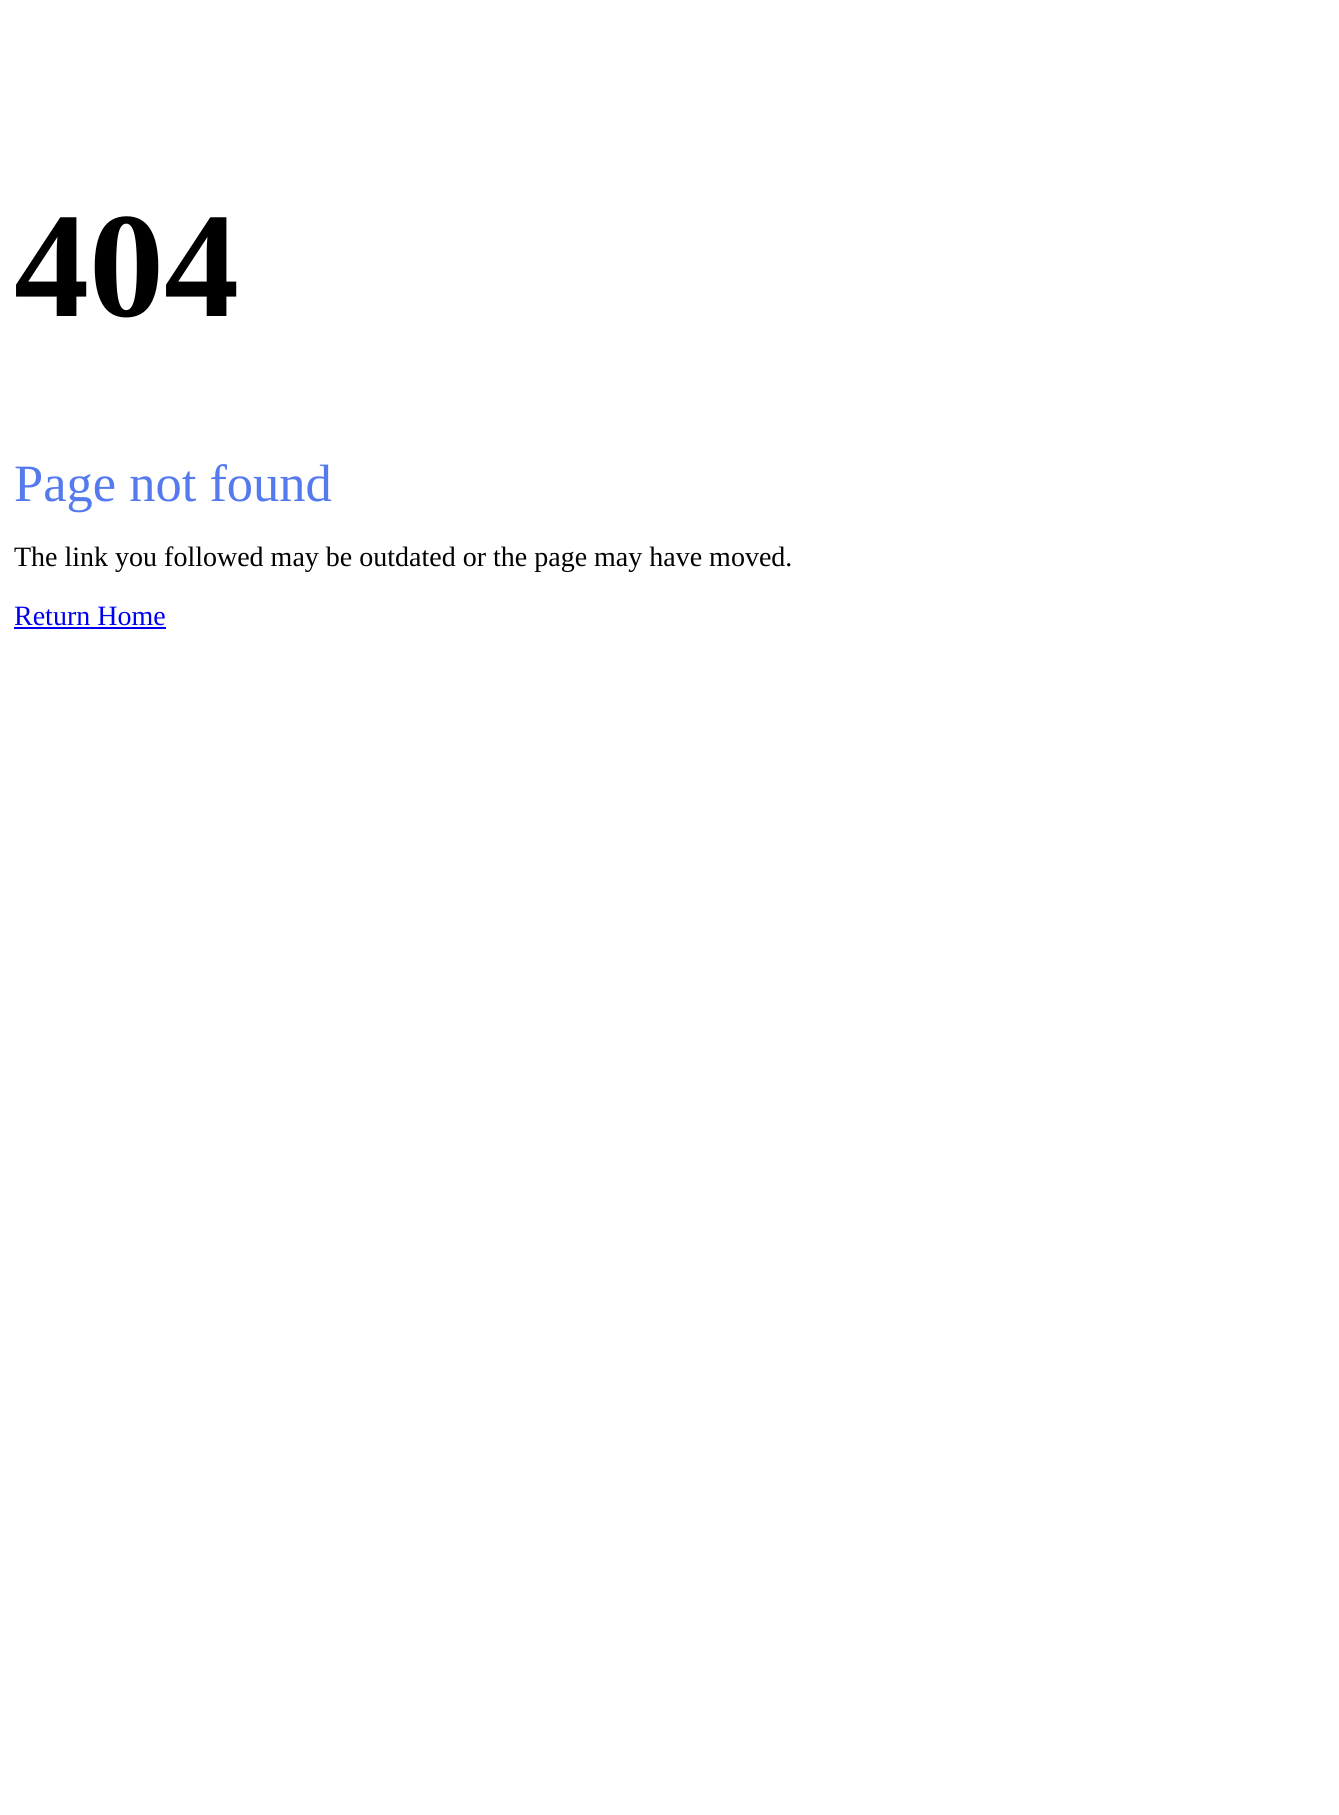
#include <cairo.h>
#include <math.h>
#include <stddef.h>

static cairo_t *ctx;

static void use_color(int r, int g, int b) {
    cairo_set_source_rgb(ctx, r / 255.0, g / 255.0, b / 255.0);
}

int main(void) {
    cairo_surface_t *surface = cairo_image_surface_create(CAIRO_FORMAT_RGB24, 1339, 1815);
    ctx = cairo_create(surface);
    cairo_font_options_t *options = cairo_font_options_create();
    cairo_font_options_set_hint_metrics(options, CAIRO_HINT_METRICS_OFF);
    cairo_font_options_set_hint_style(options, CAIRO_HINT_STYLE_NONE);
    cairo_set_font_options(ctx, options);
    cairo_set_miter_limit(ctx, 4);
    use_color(255, 255, 255);
    cairo_paint(ctx);
    cairo_select_font_face(ctx, "Liberation Serif", CAIRO_FONT_SLANT_NORMAL, CAIRO_FONT_WEIGHT_BOLD);
    cairo_set_font_size(ctx, 150);
    use_color(0, 0, 0);
    cairo_move_to(ctx, 14, 316);
    cairo_show_text(ctx, "404");
    cairo_select_font_face(ctx, "Liberation Serif", CAIRO_FONT_SLANT_NORMAL, CAIRO_FONT_WEIGHT_NORMAL);
    cairo_set_font_size(ctx, 52.5);
    use_color(85, 122, 237);
    cairo_move_to(ctx, 14, 501);
    cairo_show_text(ctx, "Page not found");
    cairo_set_font_size(ctx, 28);
    use_color(0, 0, 0);
    cairo_move_to(ctx, 14, 566);
    cairo_show_text(ctx, "The link you followed may be outdated or the page may have moved.");
    use_color(0, 0, 238);
    cairo_move_to(ctx, 14, 625);
    cairo_show_text(ctx, "Return Home");
    cairo_rectangle(ctx, 14, 627, 152, 2);
    cairo_fill(ctx);
    cairo_surface_write_to_png(surface, "result.png");
    cairo_font_options_destroy(options);
    cairo_destroy(ctx);
    cairo_surface_destroy(surface);
    return 0;
}
